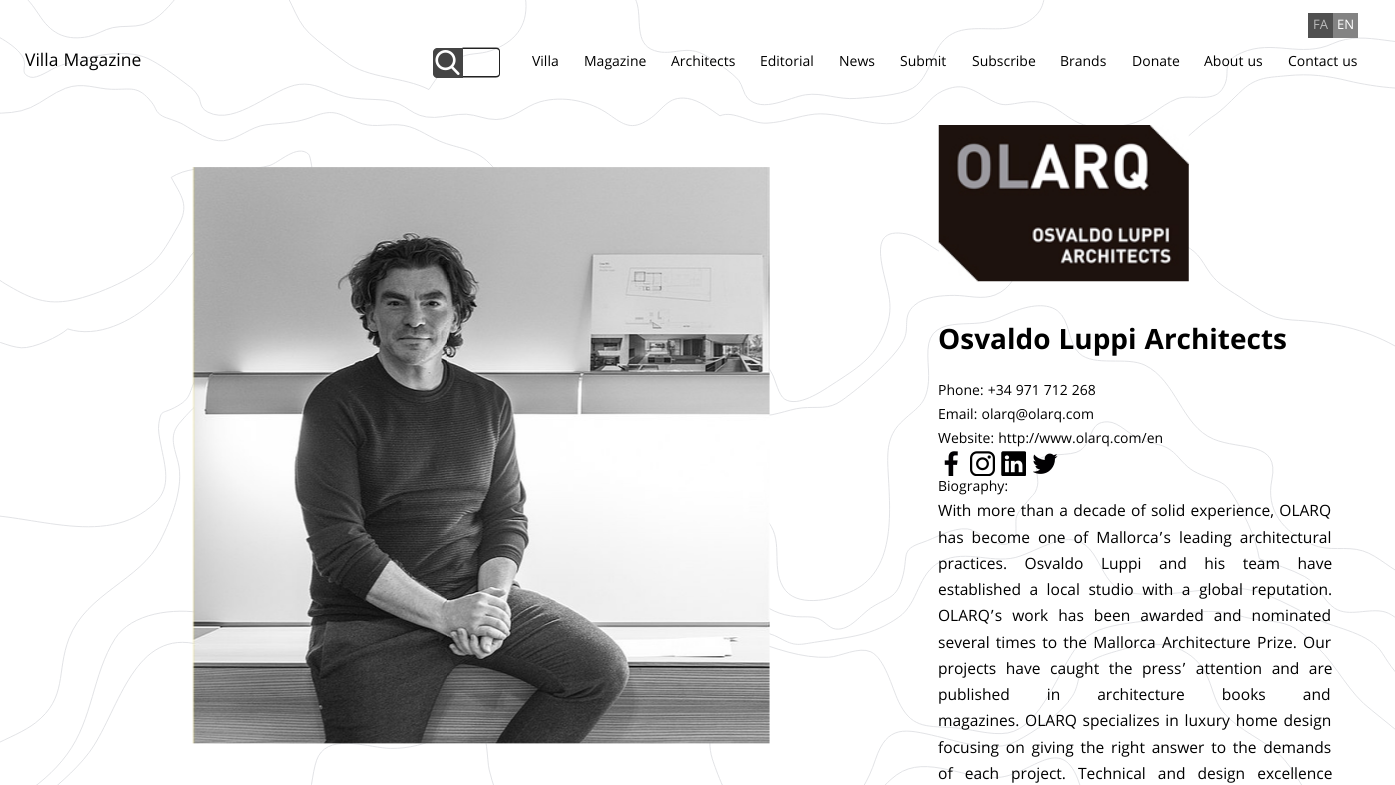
#include <cairo.h>
#include <math.h>
#include <stddef.h>

static cairo_t *ctx;

static void use_color(int r, int g, int b) {
    cairo_set_source_rgb(ctx, r / 255.0, g / 255.0, b / 255.0);
}

static void spaced_text(double x, double y, const char *s, double letter, double word) {
    cairo_move_to(ctx, x, y);
    while (*s) {
        char ch[5] = {0};
        int n = 0;
        do ch[n++] = *s++; while ((*s & 0xC0) == 0x80);
        cairo_show_text(ctx, ch);
        cairo_rel_move_to(ctx, letter + word * (*ch == ' '), 0);
    }
}

static void picture(const char *path, double x, double y, double w, double h) {
    cairo_surface_t *image = cairo_image_surface_create_from_png(path);
    cairo_save(ctx);
    cairo_set_source_surface(ctx, image, x, y);
    cairo_rectangle(ctx, x, y, w, h);
    cairo_fill(ctx);
    cairo_restore(ctx);
    cairo_surface_destroy(image);
}

int main(void) {
    cairo_surface_t *surface = cairo_image_surface_create(CAIRO_FORMAT_RGB24, 1395, 785);
    ctx = cairo_create(surface);
    cairo_font_options_t *options = cairo_font_options_create();
    cairo_font_options_set_hint_metrics(options, CAIRO_HINT_METRICS_OFF);
    cairo_font_options_set_hint_style(options, CAIRO_HINT_STYLE_NONE);
    cairo_set_font_options(ctx, options);
    cairo_set_miter_limit(ctx, 4);
    use_color(255, 255, 255);
    cairo_paint(ctx);
    picture("img1.png", 0, 0, 1395, 785);
    use_color(80, 80, 80);
    cairo_rectangle(ctx, 1308, 13, 25, 25);
    cairo_fill(ctx);
    cairo_select_font_face(ctx, "Khula", CAIRO_FONT_SLANT_NORMAL, CAIRO_FONT_WEIGHT_NORMAL);
    cairo_set_font_size(ctx, 14);
    use_color(187, 187, 187);
    cairo_move_to(ctx, 1313, 29);
    cairo_show_text(ctx, "FA");
    use_color(131, 131, 131);
    cairo_rectangle(ctx, 1333, 13, 25, 25);
    cairo_fill(ctx);
    use_color(255, 255, 255);
    cairo_move_to(ctx, 1337, 29);
    cairo_show_text(ctx, "EN");
    cairo_set_font_size(ctx, 18.75);
    use_color(0, 0, 0);
    cairo_move_to(ctx, 25, 66);
    cairo_show_text(ctx, "Villa Magazine");
    use_color(34, 34, 34);
    cairo_set_fill_rule(ctx, CAIRO_FILL_RULE_EVEN_ODD);
    cairo_new_path(ctx);
    cairo_move_to(ctx, 462.5, 47.5);
    cairo_line_to(ctx, 496, 47.5);
    cairo_curve_to(ctx, 498.5, 47.5, 500, 49, 500, 51);
    cairo_line_to(ctx, 500, 74);
    cairo_curve_to(ctx, 500, 76, 498.5, 77.5, 496, 77.5);
    cairo_line_to(ctx, 462.5, 77.5);
    cairo_close_path(ctx);
    cairo_move_to(ctx, 462.5, 49);
    cairo_line_to(ctx, 496, 49);
    cairo_curve_to(ctx, 497.5, 49, 499, 50, 499, 51);
    cairo_line_to(ctx, 499, 74);
    cairo_curve_to(ctx, 499, 75, 497.5, 76, 496, 76);
    cairo_line_to(ctx, 462.5, 76);
    cairo_close_path(ctx);
    cairo_fill(ctx);
    use_color(68, 68, 68);
    cairo_new_path(ctx);
    cairo_move_to(ctx, 437, 48);
    cairo_line_to(ctx, 463, 48);
    cairo_line_to(ctx, 463, 78);
    cairo_line_to(ctx, 437, 78);
    cairo_curve_to(ctx, 435, 78, 433, 76, 433, 74);
    cairo_line_to(ctx, 433, 52);
    cairo_curve_to(ctx, 433, 50, 435, 48, 437, 48);
    cairo_close_path(ctx);
    cairo_fill(ctx);
    picture("img2.png", 435, 50, 25, 25);
    cairo_set_font_size(ctx, 15);
    use_color(0, 0, 0);
    cairo_move_to(ctx, 532, 66);
    cairo_show_text(ctx, "Villa");
    cairo_move_to(ctx, 584, 66);
    cairo_show_text(ctx, "Magazine");
    cairo_move_to(ctx, 671, 66);
    cairo_show_text(ctx, "Architects");
    cairo_move_to(ctx, 760, 66);
    cairo_show_text(ctx, "Editorial");
    cairo_move_to(ctx, 839, 66);
    cairo_show_text(ctx, "News");
    cairo_move_to(ctx, 900, 66);
    cairo_show_text(ctx, "Submit");
    cairo_move_to(ctx, 972, 66);
    cairo_show_text(ctx, "Subscribe");
    cairo_move_to(ctx, 1060, 66);
    cairo_show_text(ctx, "Brands");
    cairo_move_to(ctx, 1132, 66);
    cairo_show_text(ctx, "Donate");
    cairo_move_to(ctx, 1204, 66);
    cairo_show_text(ctx, "About us");
    cairo_move_to(ctx, 1288, 66);
    cairo_show_text(ctx, "Contact us");
    picture("img3.png", 192, 167, 578, 577);
    picture("img4.png", 938, 125, 251, 157);
    cairo_select_font_face(ctx, "Khula", CAIRO_FONT_SLANT_NORMAL, CAIRO_FONT_WEIGHT_BOLD);
    cairo_set_font_size(ctx, 30);
    cairo_move_to(ctx, 938, 349);
    cairo_show_text(ctx, "Osvaldo Luppi Architects");
    cairo_select_font_face(ctx, "Khula", CAIRO_FONT_SLANT_NORMAL, CAIRO_FONT_WEIGHT_NORMAL);
    cairo_set_font_size(ctx, 15);
    cairo_move_to(ctx, 938, 395);
    cairo_show_text(ctx, "Phone: +34 971 712 268");
    cairo_move_to(ctx, 938, 419);
    cairo_show_text(ctx, "Email: olarq@olarq.com");
    cairo_move_to(ctx, 938, 443);
    cairo_show_text(ctx, "Website: http://www.olarq.com/en");
    picture("img5.png", 944, 451, 14, 25);
    picture("img6.png", 970, 451, 25, 25);
    picture("img7.png", 1001, 451, 25, 25);
    picture("img8.png", 1033, 453, 25, 21);
    cairo_move_to(ctx, 938, 491);
    cairo_show_text(ctx, "Biography:");
    cairo_set_font_size(ctx, 16.7);
    spaced_text(938, 516, "With more than a decade of solid experience, OLARQ", 0, 0.75);
    spaced_text(938, 543, "has become one of Mallorca’s leading architectural", 0, 3.5);
    spaced_text(938, 569, "practices. Osvaldo Luppi and his team have", 0, 13);
    spaced_text(938, 595, "established a local studio with a global reputation.", 0, 4);
    spaced_text(938, 621, "OLARQ’s work has been awarded and nominated", 0, 5.5);
    spaced_text(938, 648, "several times to the Mallorca Architecture Prize. Our", 0, 1.75);
    spaced_text(938, 674, "projects have caught the press’ attention and are", 0, 5);
    spaced_text(938, 700, "published in architecture books and", 0, 32.5);
    spaced_text(938, 726, "magazines. OLARQ specializes in luxury home design", 0, 1.25);
    spaced_text(938, 753, "focusing on giving the right answer to the demands", 0, 2.25);
    spaced_text(938, 779, "of each project. Technical and design excellence", 0, 7.5);
    cairo_surface_write_to_png(surface, "result.png");
    cairo_font_options_destroy(options);
    cairo_destroy(ctx);
    cairo_surface_destroy(surface);
    return 0;
}
